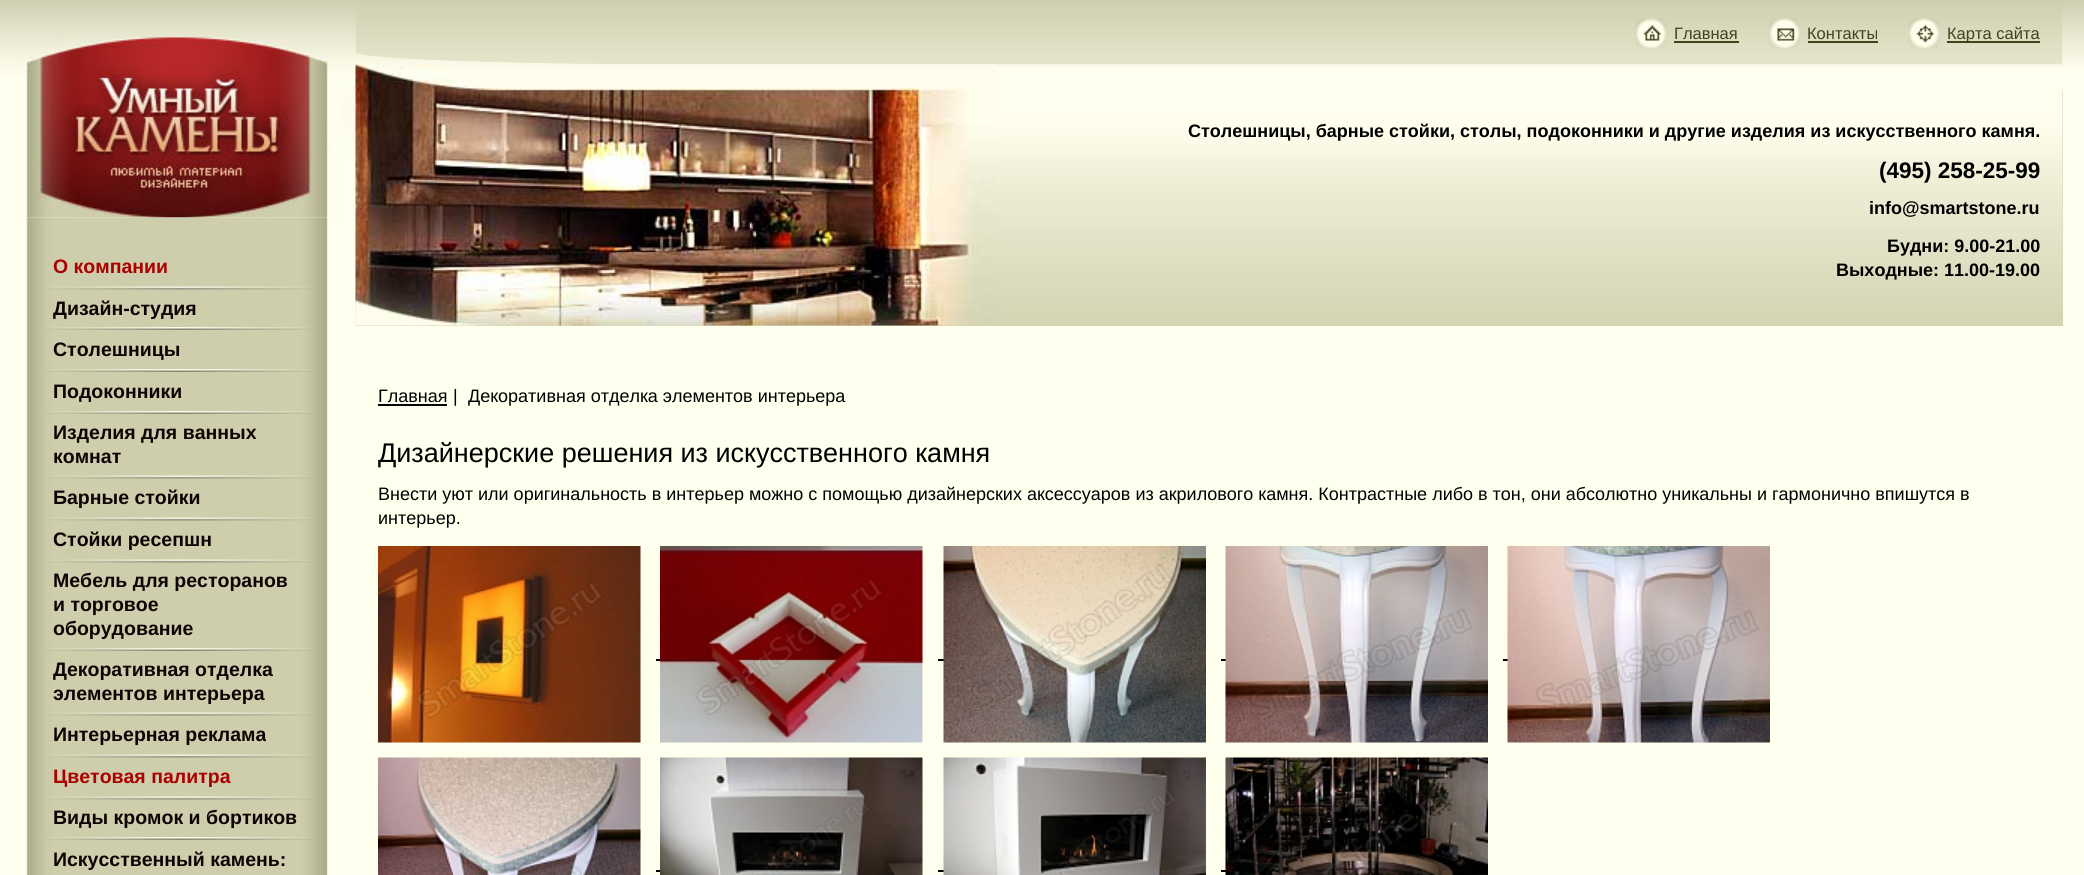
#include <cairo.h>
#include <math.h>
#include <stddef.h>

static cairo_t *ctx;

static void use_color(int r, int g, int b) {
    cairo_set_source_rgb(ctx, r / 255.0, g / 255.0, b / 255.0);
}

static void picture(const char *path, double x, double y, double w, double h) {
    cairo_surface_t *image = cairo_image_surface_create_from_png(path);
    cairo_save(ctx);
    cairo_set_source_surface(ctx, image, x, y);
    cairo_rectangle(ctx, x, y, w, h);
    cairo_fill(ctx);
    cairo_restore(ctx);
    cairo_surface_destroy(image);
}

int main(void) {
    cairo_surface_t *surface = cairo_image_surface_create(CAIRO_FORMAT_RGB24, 2084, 875);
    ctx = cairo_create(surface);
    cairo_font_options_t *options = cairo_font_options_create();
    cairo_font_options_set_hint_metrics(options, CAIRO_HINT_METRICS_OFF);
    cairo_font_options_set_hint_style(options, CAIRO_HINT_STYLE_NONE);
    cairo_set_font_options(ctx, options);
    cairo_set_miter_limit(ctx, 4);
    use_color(254, 255, 237);
    cairo_paint(ctx);
    picture("img1.png", 0, 0, 2084, 67);
    picture("img2.png", 0, 37, 355, 181);
    picture("img3.png", 26, 217, 302, 658);
    picture("img4.png", 48, 286, 264, 4);
    cairo_select_font_face(ctx, "Liberation Sans", CAIRO_FONT_SLANT_NORMAL, CAIRO_FONT_WEIGHT_BOLD);
    cairo_set_font_size(ctx, 19.5);
    use_color(170, 0, 0);
    cairo_move_to(ctx, 53, 273);
    cairo_show_text(ctx, "О компании");
    picture("img5.png", 45, 327, 270, 3);
    use_color(14, 4, 4);
    cairo_move_to(ctx, 53, 315);
    cairo_show_text(ctx, "Дизайн-студия");
    picture("img5.png", 45, 369, 270, 3);
    cairo_move_to(ctx, 53, 356);
    cairo_show_text(ctx, "Столешницы");
    picture("img5.png", 45, 411, 270, 3);
    cairo_move_to(ctx, 53, 398);
    cairo_show_text(ctx, "Подоконники");
    picture("img4.png", 48, 475, 264, 4);
    cairo_move_to(ctx, 53, 439);
    cairo_show_text(ctx, "Изделия для ванных");
    cairo_move_to(ctx, 53, 463);
    cairo_show_text(ctx, "комнат");
    picture("img4.png", 48, 517, 264, 4);
    cairo_move_to(ctx, 53, 504);
    cairo_show_text(ctx, "Барные стойки");
    picture("img4.png", 48, 559, 264, 4);
    cairo_move_to(ctx, 53, 546);
    cairo_show_text(ctx, "Стойки ресепшн");
    picture("img5.png", 45, 648, 270, 3);
    cairo_move_to(ctx, 53, 587);
    cairo_show_text(ctx, "Мебель для ресторанов");
    cairo_move_to(ctx, 53, 611);
    cairo_show_text(ctx, "и торговое");
    cairo_move_to(ctx, 53, 635);
    cairo_show_text(ctx, "оборудование");
    picture("img4.png", 48, 712, 264, 4);
    cairo_move_to(ctx, 53, 676);
    cairo_show_text(ctx, "Декоративная отделка");
    cairo_move_to(ctx, 53, 700);
    cairo_show_text(ctx, "элементов интерьера");
    picture("img4.png", 48, 754, 264, 4);
    cairo_move_to(ctx, 53, 741);
    cairo_show_text(ctx, "Интерьерная реклама");
    picture("img4.png", 48, 796, 264, 4);
    use_color(170, 0, 0);
    cairo_move_to(ctx, 53, 783);
    cairo_show_text(ctx, "Цветовая палитра");
    picture("img5.png", 45, 837, 270, 3);
    use_color(14, 4, 4);
    cairo_move_to(ctx, 53, 824);
    cairo_show_text(ctx, "Виды кромок и бортиков");
    cairo_move_to(ctx, 53, 866);
    cairo_show_text(ctx, "Искусственный камень:");
    use_color(229, 229, 203);
    cairo_new_path(ctx);
    cairo_move_to(ctx, 356, 0);
    cairo_line_to(ctx, 2062, 0);
    cairo_line_to(ctx, 2062, 64);
    cairo_line_to(ctx, 697, 64);
    cairo_curve_to(ctx, 508, 64, 356, 59, 356, 52);
    cairo_close_path(ctx);
    cairo_fill(ctx);
    picture("img6.png", 355, 0, 1708, 65);
    picture("img7.png", 1635, 18, 32, 31);
    cairo_select_font_face(ctx, "Liberation Sans", CAIRO_FONT_SLANT_NORMAL, CAIRO_FONT_WEIGHT_NORMAL);
    cairo_set_font_size(ctx, 16.5);
    use_color(66, 66, 30);
    cairo_move_to(ctx, 1674, 39);
    cairo_show_text(ctx, "Главная");
    cairo_rectangle(ctx, 1674, 41, 65, 2);
    cairo_fill(ctx);
    picture("img8.png", 1768, 18, 32, 31);
    cairo_move_to(ctx, 1807, 39);
    cairo_show_text(ctx, "Контакты");
    cairo_rectangle(ctx, 1808, 41, 70, 2);
    cairo_fill(ctx);
    picture("img9.png", 1908, 18, 32, 31);
    cairo_rectangle(ctx, 1947, 41, 93, 2);
    cairo_fill(ctx);
    cairo_move_to(ctx, 1947, 39);
    cairo_show_text(ctx, "Карта сайта");
    use_color(213, 212, 181);
    cairo_rectangle(ctx, 356, 90, 1707, 236);
    cairo_fill(ctx);
    picture("img10.png", 355, 90, 1708, 236);
    picture("img11.png", 355, 64, 641, 262);
    cairo_select_font_face(ctx, "Liberation Sans", CAIRO_FONT_SLANT_NORMAL, CAIRO_FONT_WEIGHT_BOLD);
    cairo_set_font_size(ctx, 18);
    use_color(0, 0, 0);
    cairo_move_to(ctx, 1188, 137);
    cairo_show_text(ctx, "Столешницы, барные стойки, столы, подоконники и другие изделия из искусственного камня.");
    cairo_set_font_size(ctx, 22.5);
    cairo_move_to(ctx, 1879, 178);
    cairo_show_text(ctx, "(495) 258-25-99");
    cairo_set_font_size(ctx, 18);
    cairo_move_to(ctx, 1869, 214);
    cairo_show_text(ctx, "info@smartstone.ru");
    cairo_move_to(ctx, 1887, 252);
    cairo_show_text(ctx, "Будни: 9.00-21.00");
    cairo_move_to(ctx, 1836, 276);
    cairo_show_text(ctx, "Выходные: 11.00-19.00");
    cairo_select_font_face(ctx, "Liberation Sans", CAIRO_FONT_SLANT_NORMAL, CAIRO_FONT_WEIGHT_NORMAL);
    cairo_move_to(ctx, 378, 402);
    cairo_show_text(ctx, "Главная");
    cairo_rectangle(ctx, 378, 404, 69, 2);
    cairo_fill(ctx);
    cairo_move_to(ctx, 453, 402);
    cairo_show_text(ctx, "|");
    cairo_move_to(ctx, 468, 402);
    cairo_show_text(ctx, "Декоративная отделка элементов интерьера");
    cairo_set_font_size(ctx, 27);
    cairo_move_to(ctx, 378, 462);
    cairo_show_text(ctx, "Дизайнерские решения из искусственного камня");
    cairo_set_font_size(ctx, 18);
    cairo_move_to(ctx, 378, 500);
    cairo_show_text(ctx, "Внести уют или оригинальность в интерьер можно с помощью дизайнерских аксессуаров из акрилового камня. Контрастные либо в тон, они абсолютно уникальны и гармонично впишутся в");
    cairo_move_to(ctx, 378, 524);
    cairo_show_text(ctx, "интерьер.");
    picture("img12.png", 378, 546, 263, 197);
    cairo_rectangle(ctx, 656, 659, 5, 2);
    cairo_fill(ctx);
    picture("img13.png", 660, 546, 263, 197);
    cairo_rectangle(ctx, 938, 659, 6, 2);
    cairo_fill(ctx);
    picture("img14.png", 943, 546, 263, 197);
    cairo_rectangle(ctx, 1221, 659, 5, 2);
    cairo_fill(ctx);
    picture("img15.png", 1225, 546, 263, 197);
    cairo_rectangle(ctx, 1503, 659, 5, 2);
    cairo_fill(ctx);
    picture("img16.png", 1507, 546, 263, 197);
    picture("img17.png", 378, 757, 263, 118);
    cairo_rectangle(ctx, 656, 870, 5, 2);
    cairo_fill(ctx);
    picture("img18.png", 660, 757, 263, 118);
    cairo_rectangle(ctx, 938, 870, 6, 2);
    cairo_fill(ctx);
    picture("img19.png", 943, 757, 263, 118);
    cairo_rectangle(ctx, 1221, 870, 5, 2);
    cairo_fill(ctx);
    picture("img20.png", 1225, 757, 263, 118);
    cairo_surface_write_to_png(surface, "result.png");
    cairo_font_options_destroy(options);
    cairo_destroy(ctx);
    cairo_surface_destroy(surface);
    return 0;
}
